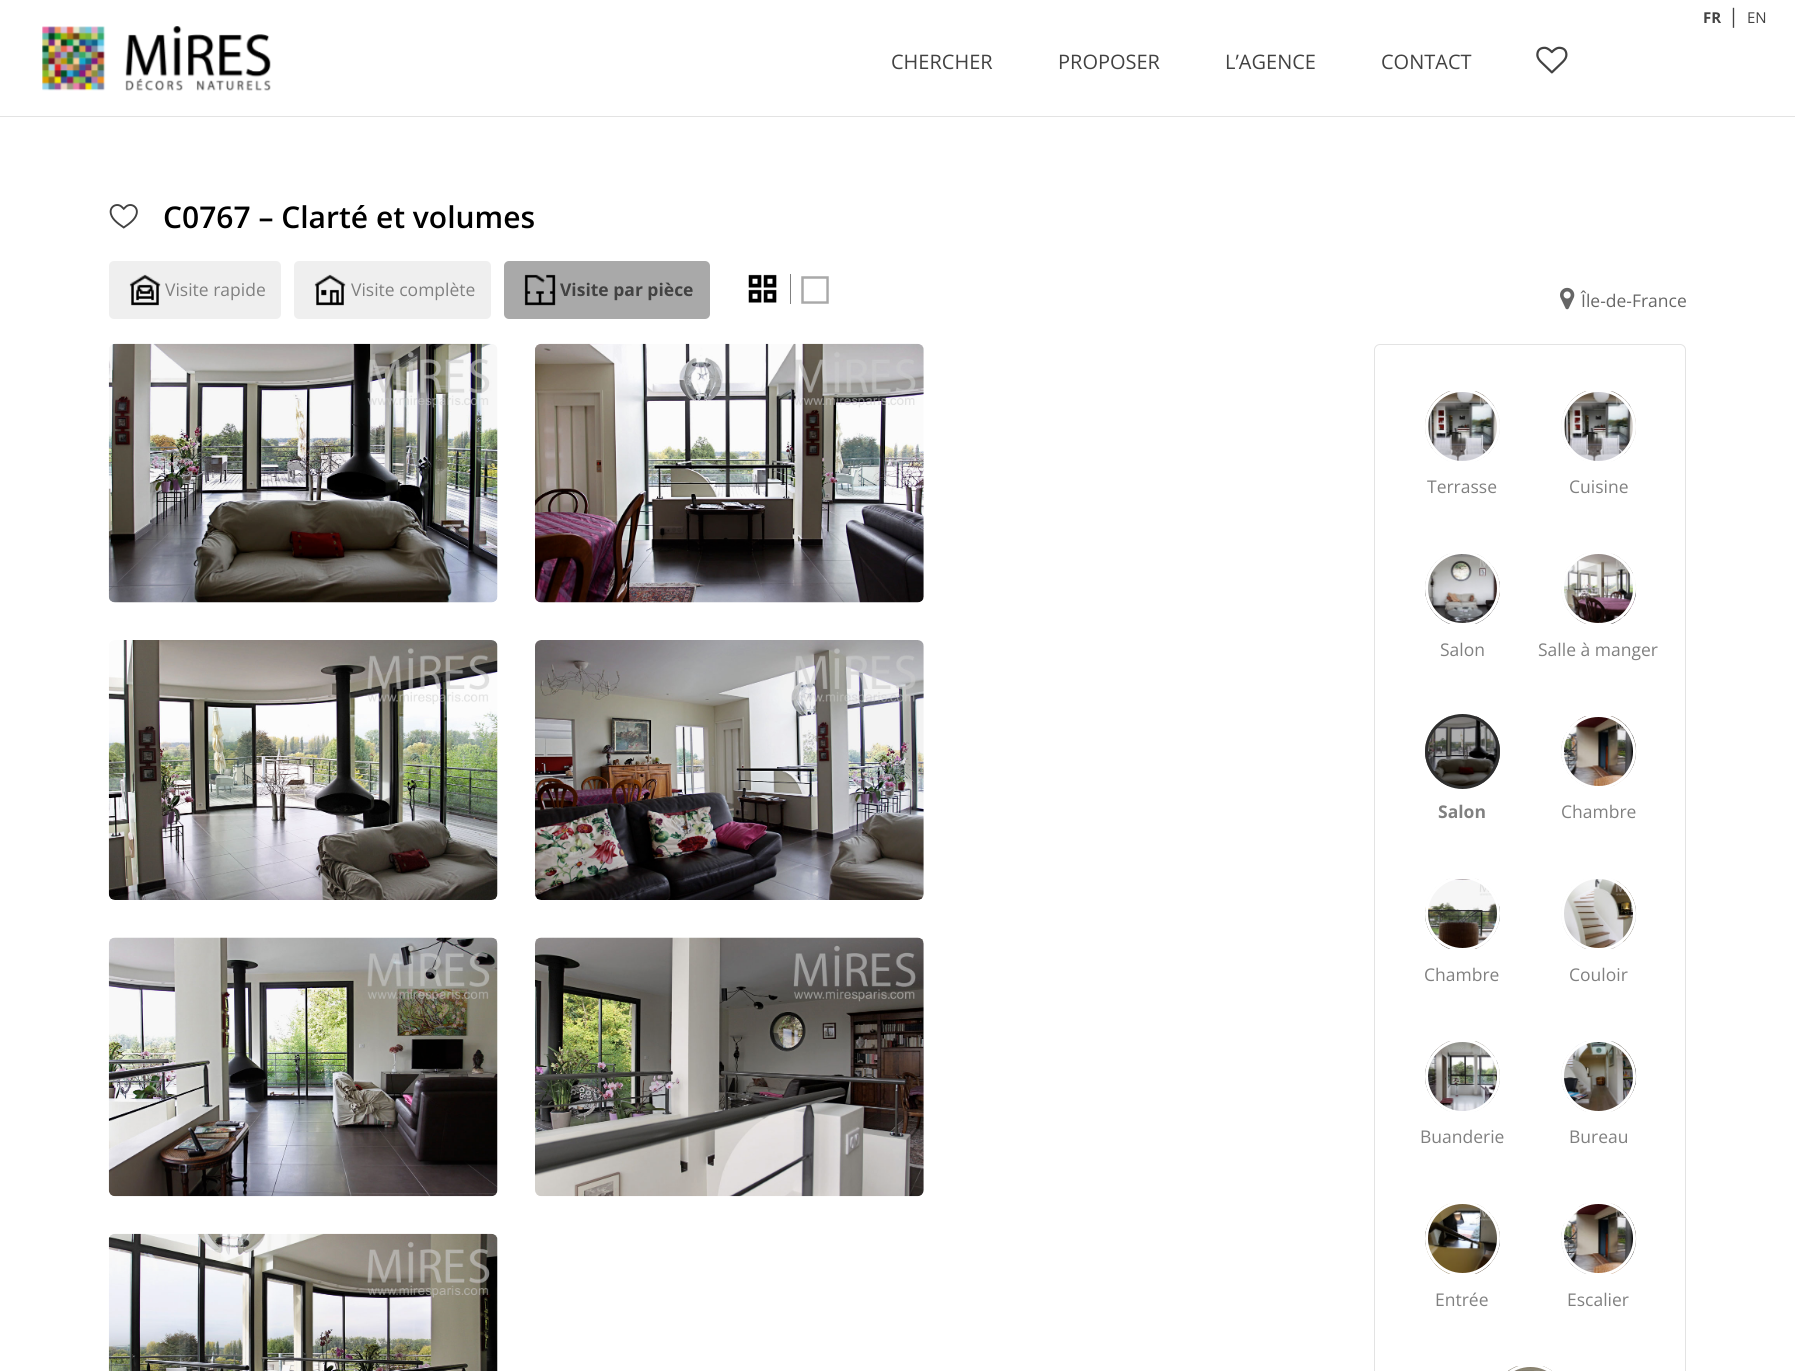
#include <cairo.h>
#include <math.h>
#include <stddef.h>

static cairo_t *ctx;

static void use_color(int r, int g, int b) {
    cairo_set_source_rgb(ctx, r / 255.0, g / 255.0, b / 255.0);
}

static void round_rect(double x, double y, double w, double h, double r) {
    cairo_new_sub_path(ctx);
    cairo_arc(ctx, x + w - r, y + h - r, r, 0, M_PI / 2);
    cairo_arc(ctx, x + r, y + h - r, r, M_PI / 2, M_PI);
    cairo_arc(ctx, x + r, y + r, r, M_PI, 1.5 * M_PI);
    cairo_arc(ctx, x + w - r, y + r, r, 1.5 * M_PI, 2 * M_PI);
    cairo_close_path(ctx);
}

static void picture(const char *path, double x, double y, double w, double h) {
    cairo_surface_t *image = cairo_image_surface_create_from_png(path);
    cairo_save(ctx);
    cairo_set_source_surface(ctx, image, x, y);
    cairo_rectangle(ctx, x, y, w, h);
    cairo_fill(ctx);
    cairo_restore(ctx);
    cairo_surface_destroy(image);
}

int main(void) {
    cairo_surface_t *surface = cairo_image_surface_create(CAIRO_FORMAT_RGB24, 1795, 1371);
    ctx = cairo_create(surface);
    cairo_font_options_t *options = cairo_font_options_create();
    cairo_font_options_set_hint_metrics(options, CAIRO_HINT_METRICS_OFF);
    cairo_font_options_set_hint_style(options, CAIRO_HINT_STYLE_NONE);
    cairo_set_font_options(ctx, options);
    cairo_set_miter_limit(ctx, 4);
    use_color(255, 255, 255);
    cairo_paint(ctx);
    use_color(227, 227, 227);
    cairo_rectangle(ctx, 0, 116, 1795, 1);
    cairo_fill(ctx);
    picture("img1.png", 42, 26, 229, 65);
    cairo_select_font_face(ctx, "Open Sans", CAIRO_FONT_SLANT_NORMAL, CAIRO_FONT_WEIGHT_BOLD);
    cairo_set_font_size(ctx, 15);
    use_color(66, 66, 66);
    cairo_move_to(ctx, 1703, 23);
    cairo_show_text(ctx, "FR");
    cairo_select_font_face(ctx, "Open Sans", CAIRO_FONT_SLANT_NORMAL, CAIRO_FONT_WEIGHT_NORMAL);
    cairo_set_font_size(ctx, 20);
    cairo_move_to(ctx, 1728, 23);
    cairo_show_text(ctx, "|");
    cairo_set_font_size(ctx, 15);
    cairo_move_to(ctx, 1747, 23);
    cairo_show_text(ctx, "EN");
    cairo_set_font_size(ctx, 20);
    cairo_move_to(ctx, 891, 69);
    cairo_show_text(ctx, "CHERCHER");
    cairo_move_to(ctx, 1058, 69);
    cairo_show_text(ctx, "PROPOSER");
    cairo_move_to(ctx, 1225, 69);
    cairo_show_text(ctx, "L’AGENCE");
    cairo_move_to(ctx, 1381, 69);
    cairo_show_text(ctx, "CONTACT");
    picture("img2.png", 1536, 46, 32, 28);
    picture("img3.png", 109, 204, 29, 25);
    cairo_select_font_face(ctx, "Open Sans SemiBold", CAIRO_FONT_SLANT_NORMAL, CAIRO_FONT_WEIGHT_NORMAL);
    cairo_set_font_size(ctx, 30);
    use_color(0, 0, 0);
    cairo_move_to(ctx, 163, 228);
    cairo_show_text(ctx, "C0767 – Clarté et volumes");
    use_color(239, 239, 239);
    round_rect(109, 261, 172, 58, 5);
    cairo_fill(ctx);
    picture("img4.png", 129, 274, 32, 32);
    cairo_select_font_face(ctx, "Open Sans", CAIRO_FONT_SLANT_NORMAL, CAIRO_FONT_WEIGHT_NORMAL);
    cairo_set_font_size(ctx, 17.5);
    use_color(128, 128, 128);
    cairo_move_to(ctx, 165, 296);
    cairo_show_text(ctx, "Visite rapide");
    use_color(239, 239, 239);
    round_rect(294, 261, 197, 58, 5);
    cairo_fill(ctx);
    picture("img5.png", 314, 274, 32, 32);
    use_color(128, 128, 128);
    cairo_move_to(ctx, 351, 296);
    cairo_show_text(ctx, "Visite complète");
    use_color(169, 169, 169);
    round_rect(504, 261, 206, 58, 5);
    cairo_fill(ctx);
    picture("img6.png", 524, 274, 32, 32);
    cairo_select_font_face(ctx, "Open Sans", CAIRO_FONT_SLANT_NORMAL, CAIRO_FONT_WEIGHT_BOLD);
    use_color(66, 66, 66);
    cairo_move_to(ctx, 560, 296);
    cairo_show_text(ctx, "Visite par pièce");
    picture("img7.png", 748, 274, 29, 29);
    use_color(128, 128, 128);
    cairo_rectangle(ctx, 790, 274, 1, 30);
    cairo_fill(ctx);
    picture("img8.png", 801, 276, 28, 28);
    picture("img9.png", 1560, 287, 15, 23);
    cairo_select_font_face(ctx, "Open Sans", CAIRO_FONT_SLANT_NORMAL, CAIRO_FONT_WEIGHT_NORMAL);
    use_color(102, 102, 102);
    cairo_move_to(ctx, 1581, 307);
    cairo_show_text(ctx, "Île-de-France");
    picture("img10.png", 108, 343, 390, 260);
    picture("img11.png", 535, 343, 389, 260);
    picture("img12.png", 108, 640, 390, 260);
    picture("img13.png", 535, 640, 389, 260);
    picture("img14.png", 108, 937, 390, 260);
    picture("img15.png", 535, 937, 389, 260);
    picture("img16.png", 108, 1233, 390, 138);
    round_rect(1374.5, 344.5, 311, 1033, 5.5);
    use_color(227, 227, 227);
    cairo_set_line_width(ctx, 1);
    cairo_stroke(ctx);
    picture("img17.png", 1425, 391, 75, 71);
    cairo_arc(ctx, 1462.5, 426.5, 36, 0, 2 * M_PI);
    use_color(255, 255, 255);
    cairo_set_line_width(ctx, 3);
    cairo_stroke(ctx);
    use_color(128, 128, 128);
    cairo_move_to(ctx, 1427, 493);
    cairo_show_text(ctx, "Terrasse");
    picture("img18.png", 1561, 391, 75, 71);
    cairo_arc(ctx, 1598.5, 426.5, 36, 0, 2 * M_PI);
    use_color(255, 255, 255);
    cairo_stroke(ctx);
    use_color(128, 128, 128);
    cairo_move_to(ctx, 1569, 493);
    cairo_show_text(ctx, "Cuisine");
    picture("img19.png", 1425, 553, 75, 71);
    cairo_arc(ctx, 1462.5, 588.5, 36, 0, 2 * M_PI);
    use_color(255, 255, 255);
    cairo_stroke(ctx);
    use_color(128, 128, 128);
    cairo_move_to(ctx, 1440, 656);
    cairo_show_text(ctx, "Salon");
    picture("img20.png", 1561, 553, 76, 71);
    cairo_arc(ctx, 1598.5, 588.5, 36, 0, 2 * M_PI);
    use_color(255, 255, 255);
    cairo_stroke(ctx);
    use_color(128, 128, 128);
    cairo_move_to(ctx, 1538, 656);
    cairo_show_text(ctx, "Salle à manger");
    picture("img21.png", 1425, 716, 75, 71);
    cairo_arc(ctx, 1462.5, 751.5, 36, 0, 2 * M_PI);
    use_color(46, 46, 46);
    cairo_stroke(ctx);
    cairo_select_font_face(ctx, "Open Sans", CAIRO_FONT_SLANT_NORMAL, CAIRO_FONT_WEIGHT_BOLD);
    use_color(128, 128, 128);
    cairo_move_to(ctx, 1438, 818);
    cairo_show_text(ctx, "Salon");
    picture("img22.png", 1561, 716, 76, 71);
    cairo_arc(ctx, 1598.5, 751.5, 36, 0, 2 * M_PI);
    use_color(255, 255, 255);
    cairo_stroke(ctx);
    cairo_select_font_face(ctx, "Open Sans", CAIRO_FONT_SLANT_NORMAL, CAIRO_FONT_WEIGHT_NORMAL);
    use_color(128, 128, 128);
    cairo_move_to(ctx, 1561, 818);
    cairo_show_text(ctx, "Chambre");
    picture("img23.png", 1425, 878, 75, 71);
    cairo_arc(ctx, 1462.5, 913.5, 36, 0, 2 * M_PI);
    use_color(255, 255, 255);
    cairo_stroke(ctx);
    use_color(128, 128, 128);
    cairo_move_to(ctx, 1424, 981);
    cairo_show_text(ctx, "Chambre");
    picture("img24.png", 1561, 878, 76, 71);
    cairo_arc(ctx, 1598.5, 913.5, 36, 0, 2 * M_PI);
    use_color(255, 255, 255);
    cairo_stroke(ctx);
    use_color(128, 128, 128);
    cairo_move_to(ctx, 1569, 981);
    cairo_show_text(ctx, "Couloir");
    picture("img25.png", 1425, 1041, 75, 71);
    cairo_arc(ctx, 1462.5, 1076.5, 36, 0, 2 * M_PI);
    use_color(255, 255, 255);
    cairo_stroke(ctx);
    use_color(128, 128, 128);
    cairo_move_to(ctx, 1420, 1143);
    cairo_show_text(ctx, "Buanderie");
    picture("img26.png", 1561, 1041, 76, 71);
    cairo_arc(ctx, 1598.5, 1076.5, 36, 0, 2 * M_PI);
    use_color(255, 255, 255);
    cairo_stroke(ctx);
    use_color(128, 128, 128);
    cairo_move_to(ctx, 1569, 1143);
    cairo_show_text(ctx, "Bureau");
    picture("img27.png", 1425, 1203, 75, 71);
    cairo_arc(ctx, 1462.5, 1238.5, 36, 0, 2 * M_PI);
    use_color(255, 255, 255);
    cairo_stroke(ctx);
    use_color(128, 128, 128);
    cairo_move_to(ctx, 1435, 1306);
    cairo_show_text(ctx, "Entrée");
    picture("img28.png", 1561, 1203, 76, 71);
    cairo_arc(ctx, 1598.5, 1238.5, 36, 0, 2 * M_PI);
    use_color(255, 255, 255);
    cairo_stroke(ctx);
    use_color(128, 128, 128);
    cairo_move_to(ctx, 1567, 1306);
    cairo_show_text(ctx, "Escalier");
    picture("img29.png", 1508, 1366, 44, 5);
    round_rect(1494.5, 1365.5, 72, 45, 36);
    use_color(255, 255, 255);
    cairo_stroke(ctx);
    cairo_surface_write_to_png(surface, "result.png");
    cairo_font_options_destroy(options);
    cairo_destroy(ctx);
    cairo_surface_destroy(surface);
    return 0;
}
